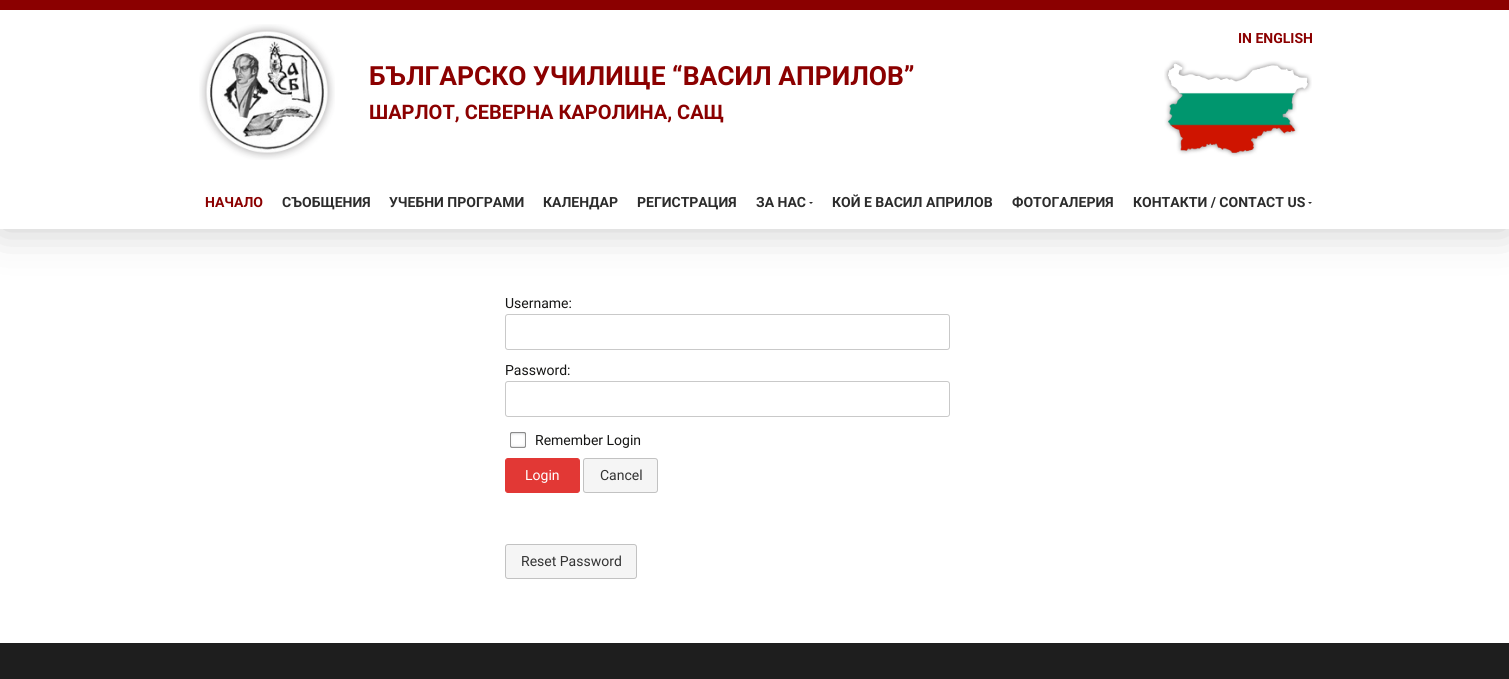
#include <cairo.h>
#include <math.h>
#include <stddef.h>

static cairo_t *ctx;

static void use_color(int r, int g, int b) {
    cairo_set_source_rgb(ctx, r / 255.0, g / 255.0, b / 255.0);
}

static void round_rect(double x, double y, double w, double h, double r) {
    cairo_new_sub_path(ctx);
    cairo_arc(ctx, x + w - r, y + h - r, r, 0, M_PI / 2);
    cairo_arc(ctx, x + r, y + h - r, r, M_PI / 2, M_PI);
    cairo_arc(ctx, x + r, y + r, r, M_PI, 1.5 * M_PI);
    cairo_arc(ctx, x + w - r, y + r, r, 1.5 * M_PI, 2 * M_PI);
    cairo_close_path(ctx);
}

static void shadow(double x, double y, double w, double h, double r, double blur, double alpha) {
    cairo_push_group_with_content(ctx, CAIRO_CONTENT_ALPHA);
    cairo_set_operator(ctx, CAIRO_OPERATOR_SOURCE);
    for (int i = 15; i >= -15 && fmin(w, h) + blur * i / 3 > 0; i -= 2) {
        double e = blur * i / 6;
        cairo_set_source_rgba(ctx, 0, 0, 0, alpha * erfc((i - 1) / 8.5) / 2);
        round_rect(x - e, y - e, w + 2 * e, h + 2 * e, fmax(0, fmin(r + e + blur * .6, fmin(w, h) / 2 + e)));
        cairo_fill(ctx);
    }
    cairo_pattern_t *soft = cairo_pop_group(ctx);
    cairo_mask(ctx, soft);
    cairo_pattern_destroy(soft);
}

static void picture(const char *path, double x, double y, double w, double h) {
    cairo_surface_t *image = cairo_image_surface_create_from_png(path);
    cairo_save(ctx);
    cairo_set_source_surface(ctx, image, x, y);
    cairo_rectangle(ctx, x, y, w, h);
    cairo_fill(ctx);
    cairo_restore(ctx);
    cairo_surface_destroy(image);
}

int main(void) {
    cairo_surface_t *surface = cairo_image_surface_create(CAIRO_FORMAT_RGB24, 1509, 679);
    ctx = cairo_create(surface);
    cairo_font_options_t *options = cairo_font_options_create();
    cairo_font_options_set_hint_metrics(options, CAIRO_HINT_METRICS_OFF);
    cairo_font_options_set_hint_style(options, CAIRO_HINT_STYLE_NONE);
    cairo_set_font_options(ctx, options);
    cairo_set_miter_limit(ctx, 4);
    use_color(30, 30, 30);
    cairo_paint(ctx);
    use_color(255, 255, 255);
    cairo_rectangle(ctx, 0, 229, 1509, 414);
    cairo_fill(ctx);
    use_color(35, 31, 32);
    shadow(0, 0, 1509, 229, 0, 21.5, 0.25);
    use_color(255, 255, 255);
    cairo_rectangle(ctx, 0, 10, 1509, 219);
    cairo_fill(ctx);
    use_color(139, 0, 0);
    cairo_rectangle(ctx, 0, 0, 1509, 10);
    cairo_fill(ctx);
    picture("img1.png", 199, 24, 136, 136);
    cairo_select_font_face(ctx, "Roboto", CAIRO_FONT_SLANT_NORMAL, CAIRO_FONT_WEIGHT_BOLD);
    cairo_set_font_size(ctx, 14);
    cairo_move_to(ctx, 1238, 43);
    cairo_show_text(ctx, "IN ENGLISH");
    picture("img2.png", 1164, 60, 148, 97);
    cairo_set_font_size(ctx, 26.4);
    cairo_move_to(ctx, 369, 85);
    cairo_show_text(ctx, "БЪЛГАРСКО УЧИЛИЩЕ “ВАСИЛ АПРИЛОВ”");
    cairo_set_font_size(ctx, 20);
    cairo_move_to(ctx, 369, 119);
    cairo_show_text(ctx, "ШАРЛОТ, СЕВЕРНА КАРОЛИНА, САЩ");
    cairo_set_font_size(ctx, 14);
    cairo_move_to(ctx, 205, 207);
    cairo_show_text(ctx, "НАЧАЛО");
    use_color(44, 44, 44);
    cairo_move_to(ctx, 282, 207);
    cairo_show_text(ctx, "СЪОБЩЕНИЯ");
    cairo_move_to(ctx, 389, 207);
    cairo_show_text(ctx, "УЧЕБНИ ПРОГРАМИ");
    cairo_move_to(ctx, 543, 207);
    cairo_show_text(ctx, "КАЛЕНДАР");
    cairo_move_to(ctx, 637, 207);
    cairo_show_text(ctx, "РЕГИСТРАЦИЯ");
    cairo_move_to(ctx, 756, 207);
    cairo_show_text(ctx, "ЗА НАС");
    cairo_new_path(ctx);
    cairo_move_to(ctx, 809, 202);
    cairo_line_to(ctx, 813, 202);
    cairo_line_to(ctx, 811, 204);
    cairo_close_path(ctx);
    cairo_fill(ctx);
    cairo_move_to(ctx, 832, 207);
    cairo_show_text(ctx, "КОЙ Е ВАСИЛ АПРИЛОВ");
    cairo_move_to(ctx, 1012, 207);
    cairo_show_text(ctx, "ФОТОГАЛЕРИЯ");
    cairo_move_to(ctx, 1133, 207);
    cairo_show_text(ctx, "КОНТАКТИ / CONTACT US");
    cairo_new_path(ctx);
    cairo_move_to(ctx, 1308, 202);
    cairo_line_to(ctx, 1312, 202);
    cairo_line_to(ctx, 1310, 204);
    cairo_close_path(ctx);
    cairo_fill(ctx);
    cairo_select_font_face(ctx, "Roboto", CAIRO_FONT_SLANT_NORMAL, CAIRO_FONT_WEIGHT_NORMAL);
    use_color(22, 22, 21);
    cairo_move_to(ctx, 505, 308);
    cairo_show_text(ctx, "Username:");
    round_rect(505.5, 314.5, 444, 35, 2.5);
    use_color(201, 201, 201);
    cairo_set_line_width(ctx, 1);
    cairo_stroke(ctx);
    use_color(22, 22, 21);
    cairo_move_to(ctx, 505, 375);
    cairo_show_text(ctx, "Password:");
    round_rect(505.5, 381.5, 444, 35, 2.5);
    use_color(201, 201, 201);
    cairo_stroke(ctx);
    picture("img3.png", 510, 432, 16, 16);
    use_color(22, 22, 21);
    cairo_move_to(ctx, 535, 445);
    cairo_show_text(ctx, "Remember Login");
    use_color(226, 56, 53);
    round_rect(505.5, 458.5, 74, 34, 2.5);
    cairo_fill_preserve(ctx);
    cairo_stroke(ctx);
    use_color(255, 255, 255);
    cairo_move_to(ctx, 525, 480);
    cairo_show_text(ctx, "Login");
    use_color(245, 245, 245);
    round_rect(583.5, 458.5, 74, 34, 2.5);
    cairo_fill_preserve(ctx);
    use_color(194, 194, 194);
    cairo_stroke(ctx);
    use_color(51, 51, 51);
    cairo_move_to(ctx, 600, 480);
    cairo_show_text(ctx, "Cancel");
    use_color(245, 245, 245);
    round_rect(505.5, 544.5, 131, 34, 2.5);
    cairo_fill_preserve(ctx);
    use_color(194, 194, 194);
    cairo_stroke(ctx);
    use_color(51, 51, 51);
    cairo_move_to(ctx, 521, 566);
    cairo_show_text(ctx, "Reset Password");
    cairo_surface_write_to_png(surface, "result.png");
    cairo_font_options_destroy(options);
    cairo_destroy(ctx);
    cairo_surface_destroy(surface);
    return 0;
}
